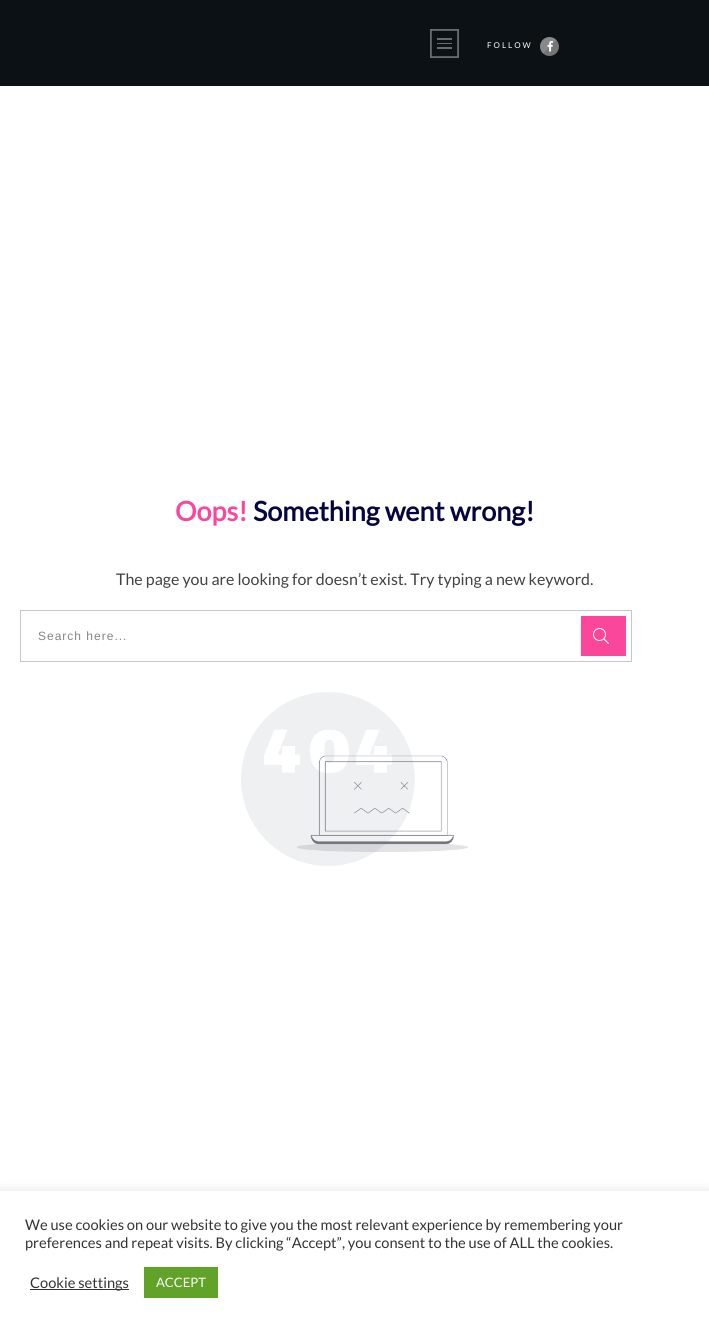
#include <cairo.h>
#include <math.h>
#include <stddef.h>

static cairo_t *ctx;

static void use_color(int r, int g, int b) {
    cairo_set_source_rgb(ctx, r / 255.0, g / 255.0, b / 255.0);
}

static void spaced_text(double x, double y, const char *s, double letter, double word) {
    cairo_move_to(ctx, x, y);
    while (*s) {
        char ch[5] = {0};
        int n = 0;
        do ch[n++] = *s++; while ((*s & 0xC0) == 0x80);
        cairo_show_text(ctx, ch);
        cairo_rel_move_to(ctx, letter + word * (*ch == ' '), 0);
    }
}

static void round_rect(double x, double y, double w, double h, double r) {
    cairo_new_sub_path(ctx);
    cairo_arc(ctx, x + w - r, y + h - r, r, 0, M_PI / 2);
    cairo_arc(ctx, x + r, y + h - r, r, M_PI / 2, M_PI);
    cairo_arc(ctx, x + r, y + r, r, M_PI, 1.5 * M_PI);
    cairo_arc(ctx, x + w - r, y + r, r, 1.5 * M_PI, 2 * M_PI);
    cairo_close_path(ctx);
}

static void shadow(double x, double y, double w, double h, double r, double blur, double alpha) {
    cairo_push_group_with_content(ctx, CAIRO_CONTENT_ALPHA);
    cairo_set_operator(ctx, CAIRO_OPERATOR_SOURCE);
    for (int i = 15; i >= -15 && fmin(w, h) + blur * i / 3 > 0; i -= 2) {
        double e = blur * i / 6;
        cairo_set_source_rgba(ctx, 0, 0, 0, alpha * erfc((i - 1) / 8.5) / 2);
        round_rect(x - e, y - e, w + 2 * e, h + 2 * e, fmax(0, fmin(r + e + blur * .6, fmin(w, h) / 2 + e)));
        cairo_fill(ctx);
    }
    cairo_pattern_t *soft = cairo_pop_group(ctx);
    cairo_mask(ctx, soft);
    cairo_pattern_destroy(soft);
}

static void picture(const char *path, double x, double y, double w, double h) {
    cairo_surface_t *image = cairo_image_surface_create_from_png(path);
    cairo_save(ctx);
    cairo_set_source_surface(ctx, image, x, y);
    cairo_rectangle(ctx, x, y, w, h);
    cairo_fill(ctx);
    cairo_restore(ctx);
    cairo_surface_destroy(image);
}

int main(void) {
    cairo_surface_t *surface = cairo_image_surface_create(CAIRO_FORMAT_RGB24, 709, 1328);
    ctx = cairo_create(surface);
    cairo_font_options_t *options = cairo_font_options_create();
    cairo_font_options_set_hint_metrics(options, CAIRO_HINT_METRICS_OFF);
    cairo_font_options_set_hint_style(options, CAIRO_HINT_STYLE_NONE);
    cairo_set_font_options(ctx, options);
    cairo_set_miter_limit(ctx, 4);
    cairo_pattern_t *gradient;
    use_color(255, 255, 255);
    cairo_paint(ctx);
    use_color(12, 17, 21);
    cairo_rectangle(ctx, 0, 0, 709, 86);
    cairo_fill(ctx);
    picture("img1.png", 430, 29, 29, 29);
    cairo_select_font_face(ctx, "Lato", CAIRO_FONT_SLANT_NORMAL, CAIRO_FONT_WEIGHT_NORMAL);
    cairo_set_font_size(ctx, 8);
    use_color(255, 255, 255);
    spaced_text(487, 48, "FOLLOW", 2, 0);
    gradient = cairo_pattern_create_linear(540, 37, 559, 56);
    cairo_pattern_add_color_stop_rgba(gradient, 0.5, 0.541, 0.537, 0.537, 1);
    cairo_pattern_add_color_stop_rgba(gradient, 0.5, 0.467, 0.463, 0.463, 1);
    cairo_set_source(ctx, gradient);
    cairo_pattern_destroy(gradient);
    cairo_new_path(ctx);
    cairo_arc(ctx, 549.5, 46.5, 9.5, 0, 2 * M_PI);
    cairo_fill(ctx);
    picture("img2.png", 547, 41, 6, 11);
    cairo_select_font_face(ctx, "Lato", CAIRO_FONT_SLANT_NORMAL, CAIRO_FONT_WEIGHT_BOLD);
    cairo_set_font_size(ctx, 27);
    use_color(250, 71, 155);
    cairo_move_to(ctx, 175, 521);
    cairo_show_text(ctx, "Oops!");
    use_color(5, 5, 65);
    cairo_move_to(ctx, 253, 521);
    cairo_show_text(ctx, "Something went wrong!");
    cairo_select_font_face(ctx, "Lato", CAIRO_FONT_SLANT_NORMAL, CAIRO_FONT_WEIGHT_NORMAL);
    cairo_set_font_size(ctx, 16);
    use_color(66, 66, 66);
    cairo_move_to(ctx, 116, 585);
    cairo_show_text(ctx, "The page you are looking for doesn’t exist. Try typing a new keyword.");
    cairo_rectangle(ctx, 20.5, 610.5, 611, 51);
    use_color(199, 199, 199);
    cairo_set_line_width(ctx, 1);
    cairo_stroke(ctx);
    cairo_select_font_face(ctx, "Liberation Sans", CAIRO_FONT_SLANT_NORMAL, CAIRO_FONT_WEIGHT_NORMAL);
    cairo_set_font_size(ctx, 12);
    use_color(133, 133, 133);
    spaced_text(38, 640, "Search here...", 1, 0);
    use_color(250, 71, 155);
    cairo_rectangle(ctx, 581, 616, 45, 40);
    cairo_fill(ctx);
    picture("img3.png", 593, 628, 16, 16);
    picture("img4.png", 241, 692, 227, 174);
    use_color(172, 171, 171);
    shadow(0, 1190, 709, 137, 0, 5, 0.3);
    use_color(255, 255, 255);
    cairo_rectangle(ctx, 0, 1191, 709, 137);
    cairo_fill(ctx);
    cairo_select_font_face(ctx, "Lato", CAIRO_FONT_SLANT_NORMAL, CAIRO_FONT_WEIGHT_NORMAL);
    cairo_set_font_size(ctx, 14.65);
    use_color(51, 51, 51);
    cairo_move_to(ctx, 25, 1230);
    cairo_show_text(ctx, "We use cookies on our website to give you the most relevant experience by remembering your");
    cairo_move_to(ctx, 25, 1248);
    cairo_show_text(ctx, "preferences and repeat visits. By clicking “Accept”, you consent to the use of ALL the cookies.");
    cairo_rectangle(ctx, 30, 1289, 99, 1);
    cairo_fill(ctx);
    cairo_move_to(ctx, 30, 1288);
    cairo_show_text(ctx, "Cookie settings");
    use_color(97, 162, 41);
    cairo_rectangle(ctx, 144, 1267, 74, 31);
    cairo_fill(ctx);
    cairo_set_font_size(ctx, 13);
    use_color(255, 255, 255);
    cairo_move_to(ctx, 156, 1287);
    cairo_show_text(ctx, "ACCEPT");
    cairo_surface_write_to_png(surface, "result.png");
    cairo_font_options_destroy(options);
    cairo_destroy(ctx);
    cairo_surface_destroy(surface);
    return 0;
}
